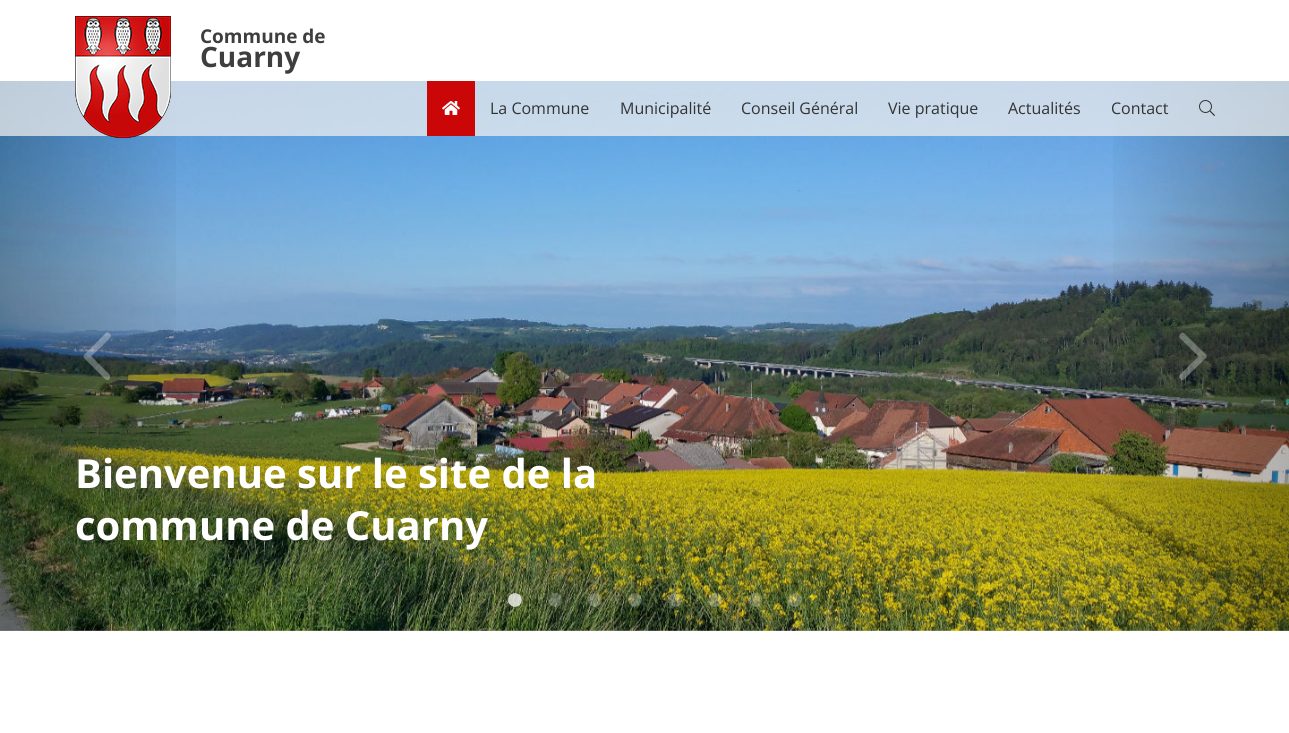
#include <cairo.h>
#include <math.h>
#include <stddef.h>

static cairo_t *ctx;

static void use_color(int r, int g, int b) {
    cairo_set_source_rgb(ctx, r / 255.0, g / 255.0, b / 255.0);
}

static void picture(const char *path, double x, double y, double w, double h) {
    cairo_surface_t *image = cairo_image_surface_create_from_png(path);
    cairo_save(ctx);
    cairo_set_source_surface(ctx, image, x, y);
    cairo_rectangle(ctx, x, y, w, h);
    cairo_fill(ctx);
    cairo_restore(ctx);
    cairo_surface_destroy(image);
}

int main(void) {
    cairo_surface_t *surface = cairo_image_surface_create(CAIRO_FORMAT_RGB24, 1289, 733);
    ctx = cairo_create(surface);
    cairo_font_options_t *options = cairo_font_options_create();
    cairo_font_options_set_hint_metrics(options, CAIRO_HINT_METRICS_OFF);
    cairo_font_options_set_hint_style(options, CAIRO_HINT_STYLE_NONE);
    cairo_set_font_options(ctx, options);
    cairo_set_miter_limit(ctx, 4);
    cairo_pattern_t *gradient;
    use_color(255, 255, 255);
    cairo_paint(ctx);
    picture("img5.png", 0, 81, 1289, 550);
    gradient = cairo_pattern_create_linear(0, 356, 193, 356);
    cairo_pattern_add_color_stop_rgba(gradient, 0, 0, 0, 0, 0.25);
    cairo_pattern_add_color_stop_rgba(gradient, 1, 0, 0, 0, 0);
    cairo_set_source(ctx, gradient);
    cairo_pattern_destroy(gradient);
    cairo_rectangle(ctx, 0, 81, 176, 550);
    cairo_fill(ctx);
    gradient = cairo_pattern_create_linear(1096, 356, 1289, 356);
    cairo_pattern_add_color_stop_rgba(gradient, 0, 0, 0, 0, 0);
    cairo_pattern_add_color_stop_rgba(gradient, 1, 0, 0, 0, 0.25);
    cairo_set_source(ctx, gradient);
    cairo_pattern_destroy(gradient);
    cairo_rectangle(ctx, 1113, 81, 176, 550);
    cairo_fill(ctx);
    cairo_set_source_rgba(ctx, 0.929, 0.929, 0.929, 0.75);
    cairo_rectangle(ctx, 0, 81, 1289, 55);
    cairo_fill(ctx);
    picture("img1.png", 75, 16, 96, 122);
    cairo_select_font_face(ctx, "Open Sans", CAIRO_FONT_SLANT_NORMAL, CAIRO_FONT_WEIGHT_BOLD);
    cairo_set_font_size(ctx, 19);
    use_color(62, 62, 62);
    cairo_move_to(ctx, 200, 43);
    cairo_show_text(ctx, "Commune de");
    cairo_set_font_size(ctx, 28);
    cairo_move_to(ctx, 200, 67);
    cairo_show_text(ctx, "Cuarny");
    use_color(203, 6, 6);
    cairo_rectangle(ctx, 427, 81, 48, 55);
    cairo_fill(ctx);
    picture("img2.png", 442, 101, 18, 14);
    cairo_select_font_face(ctx, "Open Sans", CAIRO_FONT_SLANT_NORMAL, CAIRO_FONT_WEIGHT_NORMAL);
    cairo_set_font_size(ctx, 16);
    use_color(51, 51, 51);
    cairo_move_to(ctx, 490, 114);
    cairo_show_text(ctx, "La Commune");
    cairo_move_to(ctx, 620, 114);
    cairo_show_text(ctx, "Municipalité");
    cairo_move_to(ctx, 741, 114);
    cairo_show_text(ctx, "Conseil Général");
    cairo_move_to(ctx, 888, 114);
    cairo_show_text(ctx, "Vie pratique");
    cairo_move_to(ctx, 1008, 114);
    cairo_show_text(ctx, "Actualités");
    cairo_move_to(ctx, 1111, 114);
    cairo_show_text(ctx, "Contact");
    picture("img3.png", 1199, 100, 16, 16);
    cairo_set_source_rgba(ctx, 1, 1, 1, 0.3);
    cairo_new_path(ctx);
    cairo_move_to(ctx, 84, 355);
    cairo_line_to(ctx, 106, 333);
    cairo_curve_to(ctx, 107, 331, 111, 334, 111, 336);
    cairo_curve_to(ctx, 111, 338, 94, 354, 91, 356);
    cairo_line_to(ctx, 110, 375);
    cairo_line_to(ctx, 110, 378);
    cairo_curve_to(ctx, 108, 383, 104, 378, 102, 376);
    cairo_line_to(ctx, 87, 361);
    cairo_curve_to(ctx, 86, 360, 82, 357, 84, 355);
    cairo_close_path(ctx);
    cairo_fill(ctx);
    picture("img4.png", 1179, 332, 28, 48);
    cairo_select_font_face(ctx, "Open Sans", CAIRO_FONT_SLANT_NORMAL, CAIRO_FONT_WEIGHT_BOLD);
    cairo_set_font_size(ctx, 40);
    use_color(255, 255, 255);
    cairo_move_to(ctx, 75, 488);
    cairo_show_text(ctx, "Bienvenue sur le site de la");
    cairo_move_to(ctx, 75, 540);
    cairo_show_text(ctx, "commune de Cuarny");
    picture("img6.png", 508, 593, 14, 14);
    picture("img7.png", 548, 593, 14, 14);
    picture("img8.png", 588, 593, 14, 14);
    picture("img9.png", 628, 593, 14, 14);
    picture("img10.png", 668, 593, 14, 14);
    picture("img11.png", 708, 593, 14, 14);
    picture("img12.png", 748, 593, 14, 14);
    picture("img13.png", 788, 593, 14, 14);
    cairo_surface_write_to_png(surface, "result.png");
    cairo_font_options_destroy(options);
    cairo_destroy(ctx);
    cairo_surface_destroy(surface);
    return 0;
}
